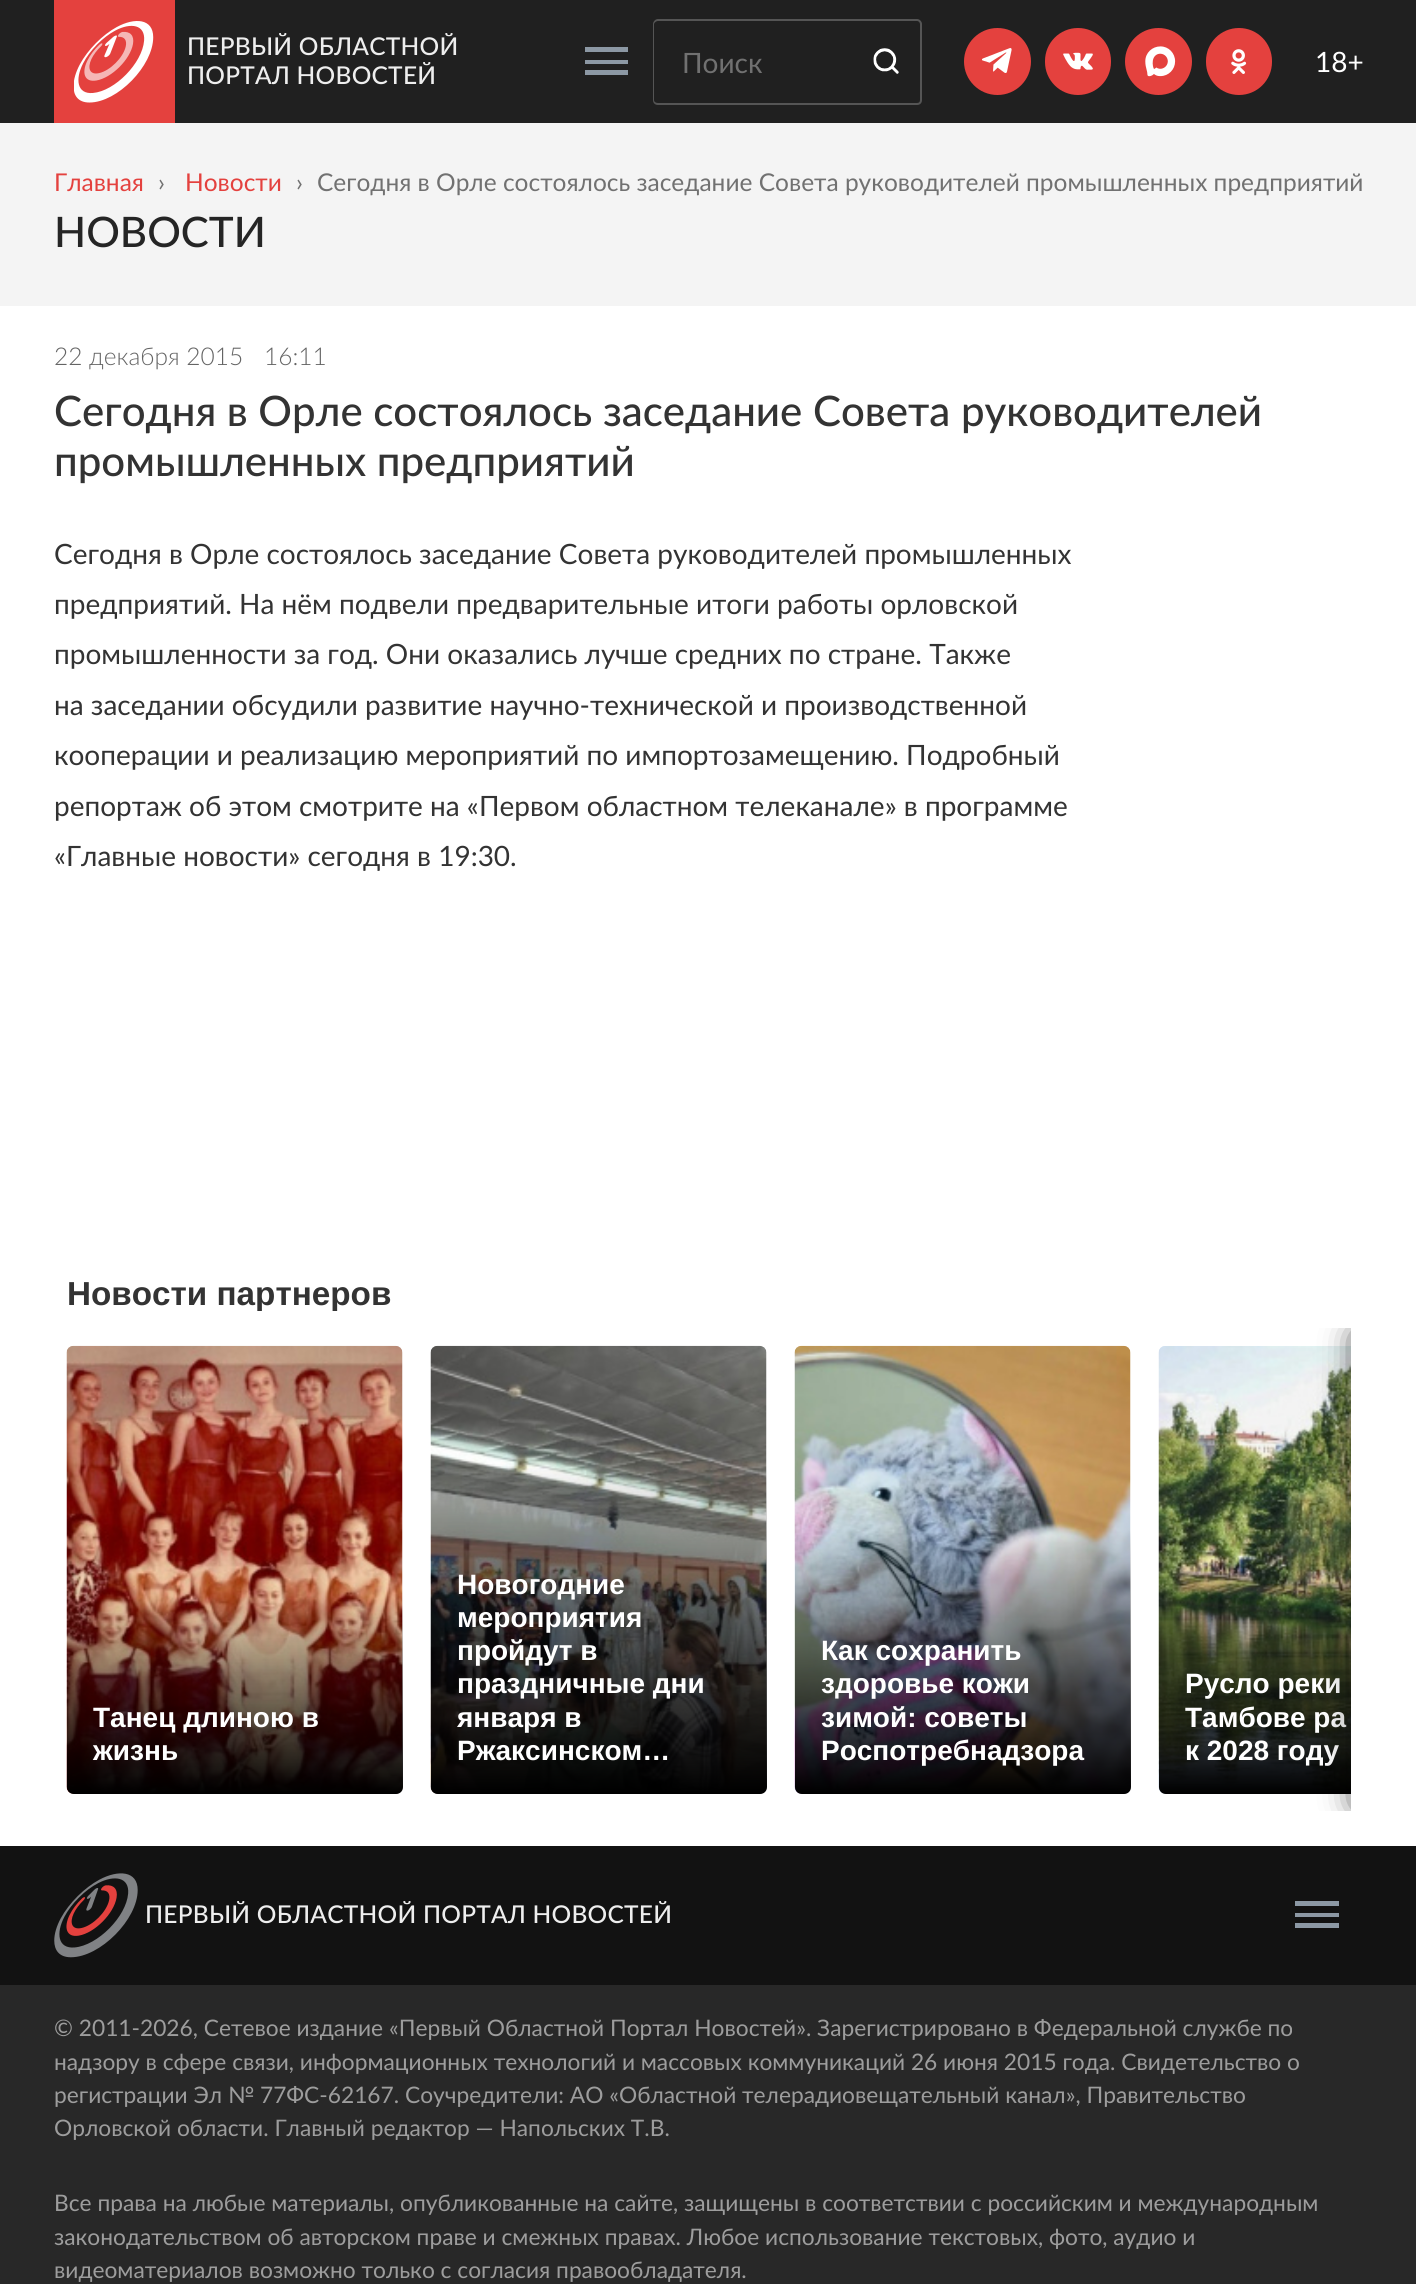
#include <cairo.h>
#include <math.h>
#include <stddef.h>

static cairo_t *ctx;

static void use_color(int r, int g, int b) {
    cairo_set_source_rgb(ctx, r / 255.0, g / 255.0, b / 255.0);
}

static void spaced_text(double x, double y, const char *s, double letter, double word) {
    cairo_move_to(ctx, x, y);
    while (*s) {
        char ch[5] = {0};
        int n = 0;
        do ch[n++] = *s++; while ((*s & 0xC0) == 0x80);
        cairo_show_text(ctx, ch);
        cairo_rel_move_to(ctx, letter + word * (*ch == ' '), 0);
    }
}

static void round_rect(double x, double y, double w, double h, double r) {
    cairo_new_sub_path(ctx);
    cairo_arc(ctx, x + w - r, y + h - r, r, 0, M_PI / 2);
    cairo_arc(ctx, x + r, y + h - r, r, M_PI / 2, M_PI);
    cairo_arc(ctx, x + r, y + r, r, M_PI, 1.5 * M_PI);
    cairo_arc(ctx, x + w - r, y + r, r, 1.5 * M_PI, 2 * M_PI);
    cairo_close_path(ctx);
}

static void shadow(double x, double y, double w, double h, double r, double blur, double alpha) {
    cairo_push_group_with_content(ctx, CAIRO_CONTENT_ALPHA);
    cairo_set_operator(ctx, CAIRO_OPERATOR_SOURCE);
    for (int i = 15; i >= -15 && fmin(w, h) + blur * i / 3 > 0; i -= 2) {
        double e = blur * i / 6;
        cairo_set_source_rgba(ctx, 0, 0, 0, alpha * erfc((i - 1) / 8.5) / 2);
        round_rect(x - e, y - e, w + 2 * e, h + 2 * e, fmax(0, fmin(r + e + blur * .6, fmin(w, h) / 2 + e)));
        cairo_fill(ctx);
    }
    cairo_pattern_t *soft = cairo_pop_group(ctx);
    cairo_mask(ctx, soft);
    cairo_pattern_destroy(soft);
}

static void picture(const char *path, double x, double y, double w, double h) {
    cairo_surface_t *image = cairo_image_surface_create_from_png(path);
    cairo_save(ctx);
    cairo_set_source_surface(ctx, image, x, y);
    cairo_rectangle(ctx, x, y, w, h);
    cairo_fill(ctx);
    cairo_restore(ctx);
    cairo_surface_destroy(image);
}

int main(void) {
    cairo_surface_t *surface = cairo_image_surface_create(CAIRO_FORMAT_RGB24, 1416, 2284);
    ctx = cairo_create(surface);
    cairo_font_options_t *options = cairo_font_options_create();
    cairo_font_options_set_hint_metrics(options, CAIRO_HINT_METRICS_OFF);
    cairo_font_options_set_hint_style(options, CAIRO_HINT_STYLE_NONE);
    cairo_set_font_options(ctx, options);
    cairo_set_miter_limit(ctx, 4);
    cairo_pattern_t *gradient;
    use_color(255, 255, 255);
    cairo_paint(ctx);
    use_color(32, 32, 32);
    cairo_rectangle(ctx, 0, 0, 1416, 123);
    cairo_fill(ctx);
    use_color(228, 65, 62);
    cairo_rectangle(ctx, 54, 0, 121, 123);
    cairo_fill(ctx);
    picture("img1.png", 74, 21, 80, 82);
    cairo_select_font_face(ctx, "Lato Medium", CAIRO_FONT_SLANT_NORMAL, CAIRO_FONT_WEIGHT_NORMAL);
    cairo_set_font_size(ctx, 24.5);
    use_color(238, 238, 238);
    spaced_text(187, 55, "ПЕРВЫЙ ОБЛАСТНОЙ", 0.25, 0);
    spaced_text(187, 84, "ПОРТАЛ НОВОСТЕЙ", 0.25, 0);
    use_color(140, 152, 164);
    cairo_rectangle(ctx, 585, 47, 43, 5);
    cairo_fill(ctx);
    cairo_rectangle(ctx, 585, 60, 43, 4);
    cairo_fill(ctx);
    cairo_rectangle(ctx, 585, 70, 43, 5);
    cairo_fill(ctx);
    use_color(85, 85, 85);
    cairo_set_fill_rule(ctx, CAIRO_FILL_RULE_EVEN_ODD);
    cairo_new_path(ctx);
    cairo_move_to(ctx, 658, 19);
    cairo_line_to(ctx, 852, 19);
    cairo_line_to(ctx, 852, 105);
    cairo_line_to(ctx, 658, 105);
    cairo_curve_to(ctx, 655, 105, 653, 103, 653, 100);
    cairo_line_to(ctx, 653, 24);
    cairo_curve_to(ctx, 653, 22, 655, 19, 658, 19);
    cairo_close_path(ctx);
    cairo_move_to(ctx, 658, 21);
    cairo_line_to(ctx, 852, 21);
    cairo_line_to(ctx, 852, 103);
    cairo_line_to(ctx, 658, 103);
    cairo_curve_to(ctx, 656, 103, 654, 102, 654, 100);
    cairo_line_to(ctx, 654, 24);
    cairo_curve_to(ctx, 654, 23, 656, 21, 658, 21);
    cairo_close_path(ctx);
    cairo_fill(ctx);
    cairo_select_font_face(ctx, "Lato", CAIRO_FONT_SLANT_NORMAL, CAIRO_FONT_WEIGHT_NORMAL);
    cairo_set_font_size(ctx, 28);
    use_color(113, 113, 113);
    cairo_move_to(ctx, 682, 73);
    cairo_show_text(ctx, "Поиск");
    use_color(85, 85, 85);
    cairo_new_path(ctx);
    cairo_move_to(ctx, 852, 19);
    cairo_line_to(ctx, 917, 19);
    cairo_curve_to(ctx, 920, 19, 922, 22, 922, 24);
    cairo_line_to(ctx, 922, 100);
    cairo_curve_to(ctx, 922, 103, 920, 105, 917, 105);
    cairo_line_to(ctx, 852, 105);
    cairo_close_path(ctx);
    cairo_move_to(ctx, 852, 21);
    cairo_line_to(ctx, 917, 21);
    cairo_curve_to(ctx, 919, 21, 920, 23, 920, 24);
    cairo_line_to(ctx, 920, 100);
    cairo_curve_to(ctx, 920, 102, 919, 103, 917, 103);
    cairo_line_to(ctx, 852, 103);
    cairo_close_path(ctx);
    cairo_fill(ctx);
    picture("img2.png", 873, 48, 26, 26);
    use_color(228, 65, 62);
    cairo_arc(ctx, 997.5, 61.5, 33.5, 0, 2 * M_PI);
    cairo_fill(ctx);
    picture("img3.png", 982, 48, 30, 25);
    round_rect(1045, 28, 66, 67, 33);
    cairo_fill(ctx);
    picture("img4.png", 1063, 52, 30, 18);
    cairo_arc(ctx, 1158.5, 61.5, 33.5, 0, 2 * M_PI);
    cairo_fill(ctx);
    picture("img5.png", 1145, 46, 31, 31);
    round_rect(1206, 28, 66, 67, 33);
    cairo_fill(ctx);
    picture("img6.png", 1231, 49, 16, 25);
    use_color(255, 255, 255);
    cairo_move_to(ctx, 1315, 72);
    cairo_show_text(ctx, "18+");
    use_color(244, 244, 244);
    cairo_rectangle(ctx, 0, 123, 1416, 183);
    cairo_fill(ctx);
    cairo_set_font_size(ctx, 24.5);
    use_color(228, 65, 62);
    cairo_move_to(ctx, 54, 191);
    cairo_show_text(ctx, "Главная");
    use_color(113, 113, 113);
    cairo_move_to(ctx, 158, 191);
    cairo_show_text(ctx, "›");
    use_color(228, 65, 62);
    cairo_move_to(ctx, 185, 191);
    cairo_show_text(ctx, "Новости");
    use_color(113, 113, 113);
    cairo_move_to(ctx, 296, 191);
    cairo_show_text(ctx, "›");
    cairo_move_to(ctx, 317, 191);
    cairo_show_text(ctx, "Сегодня в Орле состоялось заседание Совета руководителей промышленных предприятий");
    cairo_select_font_face(ctx, "Lato Medium", CAIRO_FONT_SLANT_NORMAL, CAIRO_FONT_WEIGHT_NORMAL);
    cairo_set_font_size(ctx, 42);
    use_color(37, 37, 37);
    cairo_move_to(ctx, 54, 247);
    cairo_show_text(ctx, "НОВОСТИ");
    cairo_select_font_face(ctx, "Lato Light", CAIRO_FONT_SLANT_NORMAL, CAIRO_FONT_WEIGHT_NORMAL);
    cairo_set_font_size(ctx, 24.5);
    use_color(100, 100, 100);
    cairo_move_to(ctx, 54, 365);
    cairo_show_text(ctx, "22 декабря 2015");
    cairo_move_to(ctx, 264, 365);
    cairo_show_text(ctx, "16:11");
    cairo_select_font_face(ctx, "Lato Medium", CAIRO_FONT_SLANT_NORMAL, CAIRO_FONT_WEIGHT_NORMAL);
    cairo_set_font_size(ctx, 42);
    use_color(51, 51, 51);
    cairo_move_to(ctx, 54, 426);
    cairo_show_text(ctx, "Сегодня в Орле состоялось заседание Совета руководителей");
    cairo_move_to(ctx, 54, 476);
    cairo_show_text(ctx, "промышленных предприятий");
    cairo_select_font_face(ctx, "Lato", CAIRO_FONT_SLANT_NORMAL, CAIRO_FONT_WEIGHT_NORMAL);
    cairo_set_font_size(ctx, 28);
    cairo_move_to(ctx, 54, 564);
    cairo_show_text(ctx, "Сегодня в Орле состоялось заседание Совета руководителей промышленных");
    cairo_move_to(ctx, 54, 614);
    cairo_show_text(ctx, "предприятий. На нём подвели предварительные итоги работы орловской");
    cairo_move_to(ctx, 54, 664);
    cairo_show_text(ctx, "промышленности за год. Они оказались лучше средних по стране. Также");
    cairo_move_to(ctx, 54, 715);
    cairo_show_text(ctx, "на заседании обсудили развитие научно-технической и производственной");
    cairo_move_to(ctx, 54, 765);
    cairo_show_text(ctx, "кооперации и реализацию мероприятий по импортозамещению. Подробный");
    cairo_move_to(ctx, 54, 816);
    cairo_show_text(ctx, "репортаж об этом смотрите на «Первом областном телеканале» в программе");
    cairo_move_to(ctx, 54, 866);
    cairo_show_text(ctx, "«Главные новости» сегодня в 19:30.");
    cairo_save(ctx);
    cairo_set_fill_rule(ctx, CAIRO_FILL_RULE_WINDING);
    cairo_rectangle(ctx, 67, 1278, 1284, 33);
    cairo_clip(ctx);
    cairo_select_font_face(ctx, "Liberation Sans", CAIRO_FONT_SLANT_NORMAL, CAIRO_FONT_WEIGHT_BOLD);
    cairo_set_font_size(ctx, 33.25);
    cairo_move_to(ctx, 67, 1305);
    cairo_show_text(ctx, "Новости партнеров");
    cairo_restore(ctx);
    picture("img7.png", 66, 1345, 337, 449);
    gradient = cairo_pattern_create_linear(235, 1794, 235, 1596);
    cairo_pattern_add_color_stop_rgba(gradient, 0, 0, 0, 0, 1);
    cairo_pattern_add_color_stop_rgba(gradient, 1, 0, 0, 0, 0);
    cairo_set_source(ctx, gradient);
    cairo_pattern_destroy(gradient);
    cairo_new_path(ctx);
    cairo_move_to(ctx, 67, 1596);
    cairo_line_to(ctx, 403, 1596);
    cairo_line_to(ctx, 403, 1787);
    cairo_curve_to(ctx, 403, 1791, 400, 1794, 396, 1794);
    cairo_line_to(ctx, 74, 1794);
    cairo_curve_to(ctx, 70, 1794, 67, 1791, 67, 1787);
    cairo_close_path(ctx);
    cairo_fill(ctx);
    cairo_save(ctx);
    cairo_set_fill_rule(ctx, CAIRO_FILL_RULE_WINDING);
    cairo_rectangle(ctx, 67, 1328, 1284, 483);
    cairo_clip(ctx);
    use_color(0, 0, 0);
    shadow(-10, 1510, 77, 119, 5, 17.5, 0.18);
    cairo_restore(ctx);
    cairo_select_font_face(ctx, "Liberation Sans", CAIRO_FONT_SLANT_NORMAL, CAIRO_FONT_WEIGHT_BOLD);
    use_color(255, 255, 255);
    cairo_move_to(ctx, 93, 1727);
    cairo_show_text(ctx, "Танец длиною в");
    cairo_move_to(ctx, 93, 1760);
    cairo_show_text(ctx, "жизнь");
    picture("img8.png", 430, 1345, 337, 449);
    gradient = cairo_pattern_create_linear(599, 1794, 599, 1463);
    cairo_pattern_add_color_stop_rgba(gradient, 0, 0, 0, 0, 1);
    cairo_pattern_add_color_stop_rgba(gradient, 1, 0, 0, 0, 0);
    cairo_set_source(ctx, gradient);
    cairo_pattern_destroy(gradient);
    cairo_new_path(ctx);
    cairo_move_to(ctx, 431, 1463);
    cairo_line_to(ctx, 767, 1463);
    cairo_line_to(ctx, 767, 1787);
    cairo_curve_to(ctx, 767, 1791, 764, 1794, 760, 1794);
    cairo_line_to(ctx, 438, 1794);
    cairo_curve_to(ctx, 434, 1794, 431, 1791, 431, 1787);
    cairo_close_path(ctx);
    cairo_fill(ctx);
    use_color(255, 255, 255);
    cairo_move_to(ctx, 457, 1594);
    cairo_show_text(ctx, "Новогодние");
    cairo_move_to(ctx, 457, 1627);
    cairo_show_text(ctx, "мероприятия");
    cairo_move_to(ctx, 457, 1660);
    cairo_show_text(ctx, "пройдут в");
    cairo_move_to(ctx, 457, 1693);
    cairo_show_text(ctx, "праздничные дни");
    cairo_move_to(ctx, 457, 1727);
    cairo_show_text(ctx, "января в");
    cairo_move_to(ctx, 457, 1760);
    cairo_show_text(ctx, "Ржаксинском…");
    picture("img9.png", 794, 1345, 337, 449);
    gradient = cairo_pattern_create_linear(963, 1794, 963, 1530);
    cairo_pattern_add_color_stop_rgba(gradient, 0, 0, 0, 0, 1);
    cairo_pattern_add_color_stop_rgba(gradient, 1, 0, 0, 0, 0);
    cairo_set_source(ctx, gradient);
    cairo_pattern_destroy(gradient);
    cairo_new_path(ctx);
    cairo_move_to(ctx, 795, 1530);
    cairo_line_to(ctx, 1131, 1530);
    cairo_line_to(ctx, 1131, 1787);
    cairo_curve_to(ctx, 1131, 1791, 1128, 1794, 1124, 1794);
    cairo_line_to(ctx, 802, 1794);
    cairo_curve_to(ctx, 798, 1794, 795, 1791, 795, 1787);
    cairo_close_path(ctx);
    cairo_fill(ctx);
    use_color(255, 255, 255);
    cairo_move_to(ctx, 821, 1660);
    cairo_show_text(ctx, "Как сохранить");
    cairo_move_to(ctx, 821, 1693);
    cairo_show_text(ctx, "здоровье кожи");
    cairo_move_to(ctx, 821, 1727);
    cairo_show_text(ctx, "зимой: советы");
    cairo_move_to(ctx, 821, 1760);
    cairo_show_text(ctx, "Роспотребнадзора");
    picture("img10.png", 1158, 1346, 193, 448);
    gradient = cairo_pattern_create_linear(1327, 1794, 1327, 1563);
    cairo_pattern_add_color_stop_rgba(gradient, 0, 0, 0, 0, 1);
    cairo_pattern_add_color_stop_rgba(gradient, 1, 0, 0, 0, 0);
    cairo_set_source(ctx, gradient);
    cairo_pattern_destroy(gradient);
    cairo_new_path(ctx);
    cairo_move_to(ctx, 1159, 1563);
    cairo_line_to(ctx, 1351, 1563);
    cairo_line_to(ctx, 1351, 1794);
    cairo_line_to(ctx, 1166, 1794);
    cairo_curve_to(ctx, 1162, 1794, 1159, 1791, 1159, 1787);
    cairo_close_path(ctx);
    cairo_fill(ctx);
    use_color(255, 255, 255);
    cairo_move_to(ctx, 1185, 1693);
    cairo_show_text(ctx, "Русло реки");
    cairo_move_to(ctx, 1185, 1727);
    cairo_show_text(ctx, "Тамбове ра");
    cairo_move_to(ctx, 1185, 1760);
    cairo_show_text(ctx, "к 2028 году");
    use_color(18, 18, 18);
    cairo_rectangle(ctx, 0, 1846, 1416, 139);
    cairo_fill(ctx);
    cairo_save(ctx);
    cairo_set_fill_rule(ctx, CAIRO_FILL_RULE_WINDING);
    cairo_rectangle(ctx, 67, 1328, 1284, 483);
    cairo_clip(ctx);
    use_color(0, 0, 0);
    shadow(1360, 1337, 17, 466, 0, 17.5, 1);
    cairo_restore(ctx);
    use_color(40, 40, 40);
    cairo_rectangle(ctx, 0, 1985, 1416, 299);
    cairo_fill(ctx);
    picture("img11.png", 54, 1873, 84, 85);
    cairo_select_font_face(ctx, "Lato Medium", CAIRO_FONT_SLANT_NORMAL, CAIRO_FONT_WEIGHT_NORMAL);
    cairo_set_font_size(ctx, 24.5);
    use_color(238, 238, 238);
    spaced_text(145, 1923, "ПЕРВЫЙ ОБЛАСТНОЙ ПОРТАЛ НОВОСТЕЙ", 0.25, 0);
    use_color(140, 152, 164);
    cairo_rectangle(ctx, 1295, 1901, 44, 5);
    cairo_fill(ctx);
    cairo_rectangle(ctx, 1295, 1913, 44, 4);
    cairo_fill(ctx);
    cairo_rectangle(ctx, 1295, 1923, 44, 5);
    cairo_fill(ctx);
    cairo_select_font_face(ctx, "Lato", CAIRO_FONT_SLANT_NORMAL, CAIRO_FONT_WEIGHT_NORMAL);
    cairo_set_font_size(ctx, 22.75);
    use_color(157, 157, 157);
    cairo_move_to(ctx, 54, 2036);
    cairo_show_text(ctx, "© 2011-2026, Сетевое издание «Первый Областной Портал Новостей». Зарегистрировано в Федеральной службе по");
    cairo_move_to(ctx, 54, 2070);
    cairo_show_text(ctx, "надзору в сфере связи, информационных технологий и массовых коммуникаций 26 июня 2015 года. Свидетельство о");
    cairo_move_to(ctx, 54, 2103);
    cairo_show_text(ctx, "регистрации Эл № 77ФС-62167. Соучредители: АО «Областной телерадиовещательный канал», Правительство");
    cairo_move_to(ctx, 54, 2136);
    cairo_show_text(ctx, "Орловской области. Главный редактор — Напольских Т.В.");
    cairo_move_to(ctx, 54, 2211);
    cairo_show_text(ctx, "Все права на любые материалы, опубликованные на сайте, защищены в соответствии с российским и международным");
    cairo_move_to(ctx, 54, 2245);
    cairo_show_text(ctx, "законодательством об авторском праве и смежных правах. Любое использование текстовых, фото, аудио и");
    cairo_move_to(ctx, 54, 2278);
    cairo_show_text(ctx, "видеоматериалов возможно только с согласия правообладателя.");
    cairo_surface_write_to_png(surface, "result.png");
    cairo_font_options_destroy(options);
    cairo_destroy(ctx);
    cairo_surface_destroy(surface);
    return 0;
}
